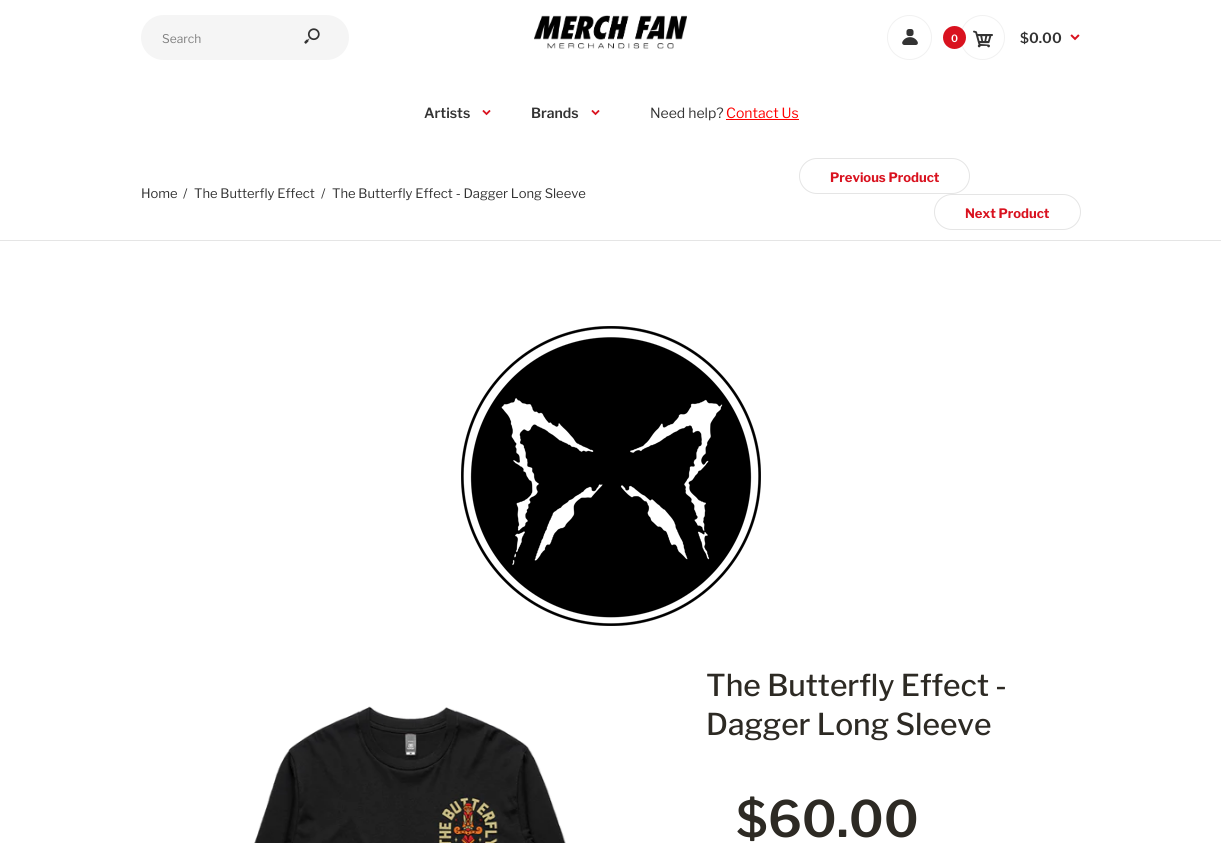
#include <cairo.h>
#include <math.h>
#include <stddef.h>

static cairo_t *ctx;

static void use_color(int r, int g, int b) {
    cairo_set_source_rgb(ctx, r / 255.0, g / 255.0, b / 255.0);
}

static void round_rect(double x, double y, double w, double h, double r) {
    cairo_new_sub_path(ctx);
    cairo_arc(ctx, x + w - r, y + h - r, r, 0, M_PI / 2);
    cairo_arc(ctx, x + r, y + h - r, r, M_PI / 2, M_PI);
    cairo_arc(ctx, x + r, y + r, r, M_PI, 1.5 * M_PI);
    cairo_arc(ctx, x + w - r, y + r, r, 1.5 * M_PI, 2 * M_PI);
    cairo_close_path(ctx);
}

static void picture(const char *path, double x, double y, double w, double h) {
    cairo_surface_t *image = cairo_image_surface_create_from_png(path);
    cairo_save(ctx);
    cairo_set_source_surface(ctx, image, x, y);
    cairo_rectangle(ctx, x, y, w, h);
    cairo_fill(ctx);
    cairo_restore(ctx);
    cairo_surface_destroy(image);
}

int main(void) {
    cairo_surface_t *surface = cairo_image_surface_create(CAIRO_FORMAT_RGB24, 1221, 843);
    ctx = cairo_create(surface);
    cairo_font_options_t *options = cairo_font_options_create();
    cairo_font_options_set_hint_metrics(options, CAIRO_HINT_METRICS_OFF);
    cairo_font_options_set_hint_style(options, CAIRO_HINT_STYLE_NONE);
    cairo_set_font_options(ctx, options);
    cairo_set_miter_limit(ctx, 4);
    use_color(255, 255, 255);
    cairo_paint(ctx);
    use_color(245, 245, 245);
    round_rect(141, 15, 208, 45, 22.5);
    cairo_fill(ctx);
    cairo_select_font_face(ctx, "Libre Franklin", CAIRO_FONT_SLANT_NORMAL, CAIRO_FONT_WEIGHT_NORMAL);
    cairo_set_font_size(ctx, 12);
    use_color(128, 128, 128);
    cairo_move_to(ctx, 162, 43);
    cairo_show_text(ctx, "Search");
    picture("img1.png", 304, 28, 16, 16);
    picture("img2.png", 534, 15, 153, 34);
    cairo_arc(ctx, 909.5, 37.5, 22, 0, 2 * M_PI);
    use_color(241, 241, 241);
    cairo_set_line_width(ctx, 1);
    cairo_stroke(ctx);
    picture("img3.png", 902, 29, 16, 16);
    cairo_arc(ctx, 982.5, 37.5, 22, 0, 2 * M_PI);
    cairo_stroke(ctx);
    use_color(217, 18, 31);
    cairo_arc(ctx, 954.5, 37.5, 11.5, 0, 2 * M_PI);
    cairo_fill(ctx);
    cairo_select_font_face(ctx, "Libre Franklin SemiBold", CAIRO_FONT_SLANT_NORMAL, CAIRO_FONT_WEIGHT_NORMAL);
    cairo_set_font_size(ctx, 10);
    use_color(255, 255, 255);
    cairo_move_to(ctx, 951, 42);
    cairo_show_text(ctx, "0");
    picture("img4.png", 973, 30, 20, 18);
    cairo_set_font_size(ctx, 14);
    use_color(51, 51, 51);
    cairo_move_to(ctx, 1020, 43);
    cairo_show_text(ctx, "$0.00");
    picture("img5.png", 1070, 34, 10, 7);
    cairo_move_to(ctx, 424, 118);
    cairo_show_text(ctx, "Artists");
    picture("img6.png", 482, 110, 9, 6);
    cairo_move_to(ctx, 531, 118);
    cairo_show_text(ctx, "Brands");
    picture("img6.png", 591, 110, 9, 6);
    cairo_select_font_face(ctx, "Libre Franklin", CAIRO_FONT_SLANT_NORMAL, CAIRO_FONT_WEIGHT_NORMAL);
    cairo_move_to(ctx, 650, 118);
    cairo_show_text(ctx, "Need help?");
    use_color(255, 0, 0);
    cairo_move_to(ctx, 726, 118);
    cairo_show_text(ctx, "Contact Us");
    cairo_rectangle(ctx, 726, 119, 73, 1);
    cairo_fill(ctx);
    use_color(229, 229, 229);
    cairo_rectangle(ctx, 0, 240, 1221, 1);
    cairo_fill(ctx);
    cairo_set_font_size(ctx, 13);
    use_color(51, 51, 51);
    cairo_move_to(ctx, 141, 198);
    cairo_show_text(ctx, "Home");
    cairo_move_to(ctx, 183, 198);
    cairo_show_text(ctx, "/");
    cairo_move_to(ctx, 194, 198);
    cairo_show_text(ctx, "The Butterfly Effect");
    cairo_move_to(ctx, 321, 198);
    cairo_show_text(ctx, "/");
    cairo_move_to(ctx, 332, 198);
    cairo_show_text(ctx, "The Butterfly Effect - Dagger Long Sleeve");
    round_rect(799.5, 158.5, 170, 35, 17.5);
    use_color(229, 229, 229);
    cairo_stroke(ctx);
    cairo_select_font_face(ctx, "Libre Franklin", CAIRO_FONT_SLANT_NORMAL, CAIRO_FONT_WEIGHT_BOLD);
    use_color(217, 18, 31);
    cairo_move_to(ctx, 830, 182);
    cairo_show_text(ctx, "Previous Product");
    round_rect(934.5, 194.5, 146, 35, 17.5);
    use_color(229, 229, 229);
    cairo_stroke(ctx);
    use_color(217, 18, 31);
    cairo_move_to(ctx, 965, 218);
    cairo_show_text(ctx, "Next Product");
    picture("img7.png", 461, 326, 300, 300);
    picture("img8.png", 254, 706, 312, 137);
    cairo_select_font_face(ctx, "Libre Franklin Medium", CAIRO_FONT_SLANT_NORMAL, CAIRO_FONT_WEIGHT_NORMAL);
    cairo_set_font_size(ctx, 30);
    use_color(45, 42, 36);
    cairo_move_to(ctx, 706, 696);
    cairo_show_text(ctx, "The Butterfly Effect -");
    cairo_move_to(ctx, 706, 735);
    cairo_show_text(ctx, "Dagger Long Sleeve");
    cairo_select_font_face(ctx, "Libre Franklin SemiBold", CAIRO_FONT_SLANT_NORMAL, CAIRO_FONT_WEIGHT_NORMAL);
    cairo_set_font_size(ctx, 50);
    cairo_move_to(ctx, 736, 837);
    cairo_show_text(ctx, "$60.00");
    cairo_surface_write_to_png(surface, "result.png");
    cairo_font_options_destroy(options);
    cairo_destroy(ctx);
    cairo_surface_destroy(surface);
    return 0;
}
